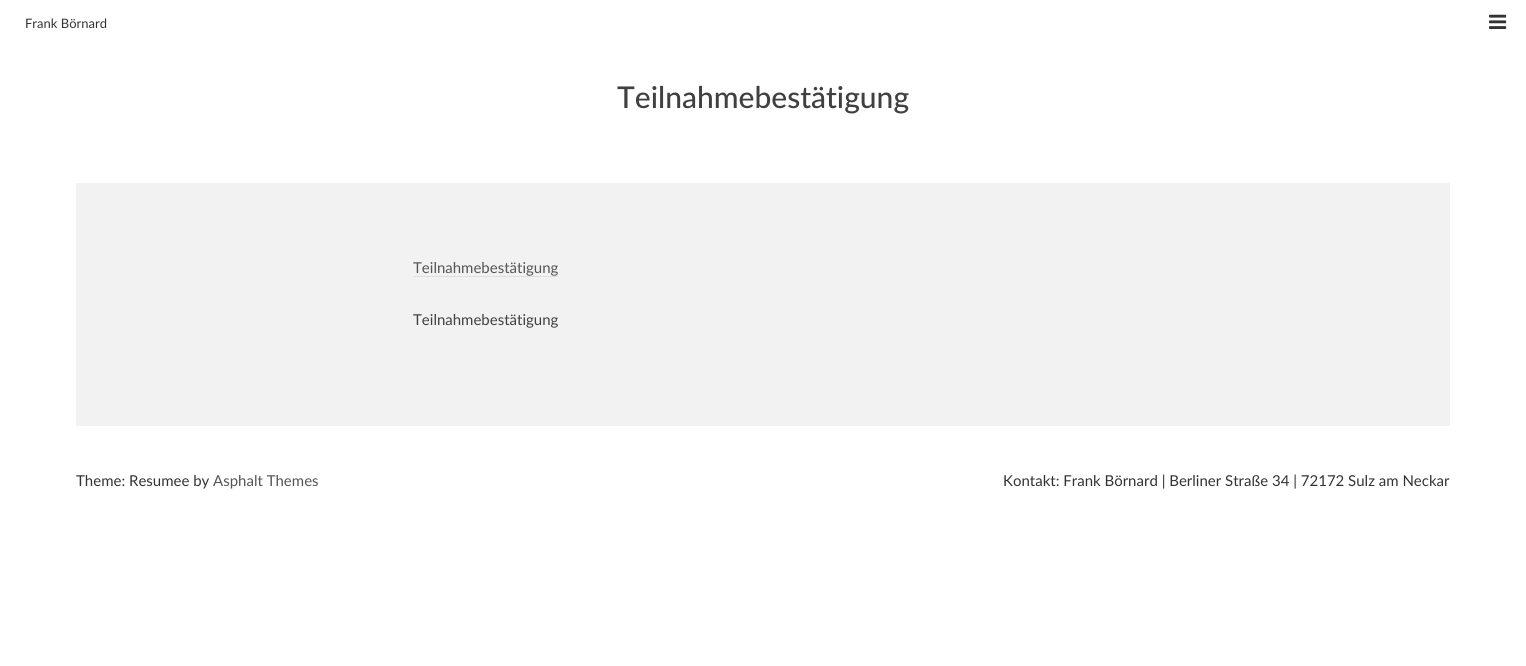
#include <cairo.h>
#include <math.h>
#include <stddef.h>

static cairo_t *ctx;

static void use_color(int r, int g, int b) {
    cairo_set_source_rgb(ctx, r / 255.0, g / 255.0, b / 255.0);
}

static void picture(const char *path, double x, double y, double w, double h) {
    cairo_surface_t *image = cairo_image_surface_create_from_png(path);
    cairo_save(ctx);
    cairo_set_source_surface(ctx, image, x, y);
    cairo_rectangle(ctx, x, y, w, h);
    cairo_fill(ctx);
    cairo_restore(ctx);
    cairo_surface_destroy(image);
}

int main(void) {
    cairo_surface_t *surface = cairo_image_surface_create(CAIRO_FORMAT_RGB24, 1526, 666);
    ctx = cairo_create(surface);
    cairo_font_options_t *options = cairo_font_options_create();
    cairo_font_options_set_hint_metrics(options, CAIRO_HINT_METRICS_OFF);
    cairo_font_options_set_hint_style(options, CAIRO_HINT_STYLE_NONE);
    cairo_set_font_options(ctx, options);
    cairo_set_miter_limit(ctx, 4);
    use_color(255, 255, 255);
    cairo_paint(ctx);
    cairo_select_font_face(ctx, "Lato", CAIRO_FONT_SLANT_NORMAL, CAIRO_FONT_WEIGHT_NORMAL);
    cairo_set_font_size(ctx, 13);
    use_color(51, 51, 51);
    cairo_move_to(ctx, 25, 28);
    cairo_show_text(ctx, "Frank Börnard");
    picture("img1.png", 1489, 14, 18, 15);
    cairo_select_font_face(ctx, "Lato Medium", CAIRO_FONT_SLANT_NORMAL, CAIRO_FONT_WEIGHT_NORMAL);
    cairo_set_font_size(ctx, 30);
    use_color(64, 64, 64);
    cairo_move_to(ctx, 617, 108);
    cairo_show_text(ctx, "Teilnahmebestätigung");
    use_color(242, 242, 242);
    cairo_rectangle(ctx, 76, 183, 1374, 243);
    cairo_fill(ctx);
    cairo_select_font_face(ctx, "Lato", CAIRO_FONT_SLANT_NORMAL, CAIRO_FONT_WEIGHT_NORMAL);
    cairo_set_font_size(ctx, 15);
    use_color(85, 85, 85);
    cairo_move_to(ctx, 413, 273);
    cairo_show_text(ctx, "Teilnahmebestätigung");
    use_color(223, 223, 223);
    cairo_rectangle(ctx, 413, 276, 145, 1);
    cairo_fill(ctx);
    use_color(64, 64, 64);
    cairo_move_to(ctx, 413, 325);
    cairo_show_text(ctx, "Teilnahmebestätigung");
    use_color(51, 51, 51);
    cairo_move_to(ctx, 76, 486);
    cairo_show_text(ctx, "Theme: Resumee by");
    use_color(85, 85, 85);
    cairo_move_to(ctx, 213, 486);
    cairo_show_text(ctx, "Asphalt Themes");
    use_color(51, 51, 51);
    cairo_move_to(ctx, 1003, 486);
    cairo_show_text(ctx, "Kontakt: Frank Börnard | Berliner Straße 34 | 72172 Sulz am Neckar");
    cairo_surface_write_to_png(surface, "result.png");
    cairo_font_options_destroy(options);
    cairo_destroy(ctx);
    cairo_surface_destroy(surface);
    return 0;
}
